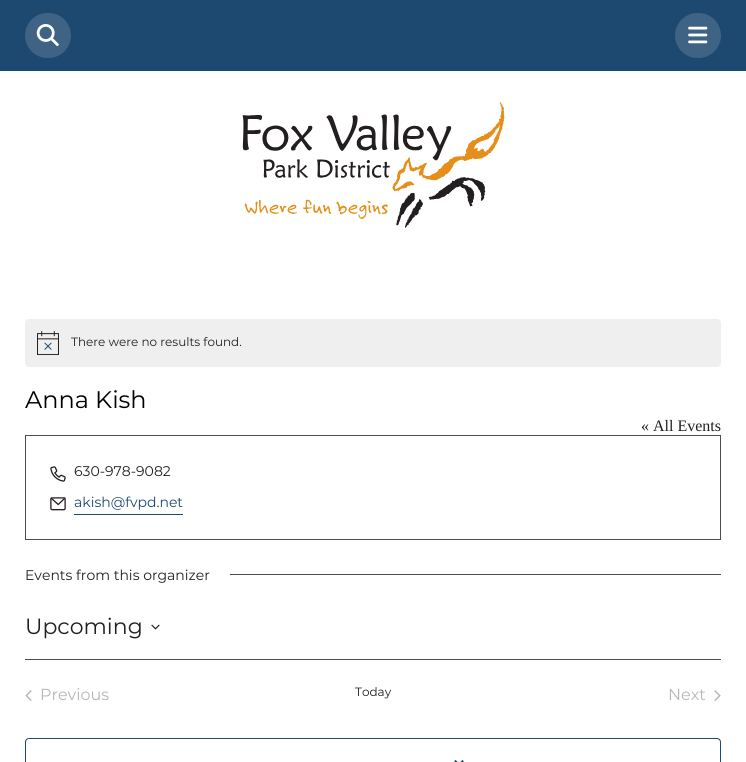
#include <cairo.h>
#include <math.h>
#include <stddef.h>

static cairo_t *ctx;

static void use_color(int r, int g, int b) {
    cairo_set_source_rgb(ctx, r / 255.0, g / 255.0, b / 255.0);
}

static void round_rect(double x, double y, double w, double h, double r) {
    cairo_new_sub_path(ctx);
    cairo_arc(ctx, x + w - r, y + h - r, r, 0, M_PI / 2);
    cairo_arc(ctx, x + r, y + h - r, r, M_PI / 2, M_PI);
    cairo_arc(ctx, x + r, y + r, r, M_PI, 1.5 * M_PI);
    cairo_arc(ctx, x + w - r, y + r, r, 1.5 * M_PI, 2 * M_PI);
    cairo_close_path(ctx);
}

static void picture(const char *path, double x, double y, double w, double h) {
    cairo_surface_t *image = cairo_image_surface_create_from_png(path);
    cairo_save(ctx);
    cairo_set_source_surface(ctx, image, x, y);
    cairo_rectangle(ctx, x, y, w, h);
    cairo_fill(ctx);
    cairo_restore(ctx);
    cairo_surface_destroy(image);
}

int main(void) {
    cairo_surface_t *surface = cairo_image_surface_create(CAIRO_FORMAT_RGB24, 746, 762);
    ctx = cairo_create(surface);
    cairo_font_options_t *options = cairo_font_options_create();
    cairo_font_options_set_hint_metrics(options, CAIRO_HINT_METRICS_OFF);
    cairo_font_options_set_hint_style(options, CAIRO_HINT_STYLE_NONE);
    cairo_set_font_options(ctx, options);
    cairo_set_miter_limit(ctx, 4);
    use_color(255, 255, 255);
    cairo_paint(ctx);
    use_color(29, 72, 111);
    cairo_rectangle(ctx, 0, 0, 746, 71);
    cairo_fill(ctx);
    use_color(63, 99, 133);
    round_rect(25, 13, 46, 45, 22.5);
    cairo_fill(ctx);
    picture("img1.png", 36, 24, 23, 22);
    round_rect(675, 13, 46, 45, 22.5);
    cairo_fill(ctx);
    picture("img2.png", 688, 26, 20, 18);
    picture("img3.png", 242, 102, 263, 126);
    use_color(240, 239, 239);
    round_rect(25, 319, 696, 48, 4);
    cairo_fill(ctx);
    picture("img4.png", 37, 331, 22, 24);
    cairo_select_font_face(ctx, "Montserrat", CAIRO_FONT_SLANT_NORMAL, CAIRO_FONT_WEIGHT_NORMAL);
    cairo_set_font_size(ctx, 12);
    use_color(35, 31, 32);
    cairo_move_to(ctx, 71, 346);
    cairo_show_text(ctx, "There were no results found.");
    cairo_set_font_size(ctx, 24);
    use_color(0, 0, 0);
    cairo_move_to(ctx, 25, 408);
    cairo_show_text(ctx, "Anna Kish");
    cairo_select_font_face(ctx, "Liberation Serif", CAIRO_FONT_SLANT_NORMAL, CAIRO_FONT_WEIGHT_NORMAL);
    cairo_set_font_size(ctx, 16);
    use_color(35, 31, 32);
    cairo_move_to(ctx, 641, 431);
    cairo_show_text(ctx, "« All Events");
    cairo_rectangle(ctx, 25.5, 435.5, 695, 104);
    use_color(76, 76, 76);
    cairo_set_line_width(ctx, 1);
    cairo_stroke(ctx);
    picture("img5.png", 50, 466, 16, 16);
    cairo_select_font_face(ctx, "Montserrat", CAIRO_FONT_SLANT_NORMAL, CAIRO_FONT_WEIGHT_NORMAL);
    cairo_set_font_size(ctx, 14);
    use_color(35, 31, 32);
    cairo_move_to(ctx, 74, 476);
    cairo_show_text(ctx, "630-978-9082");
    picture("img6.png", 50, 497, 16, 14);
    use_color(29, 72, 111);
    cairo_rectangle(ctx, 74, 514, 109, 1);
    cairo_fill(ctx);
    cairo_move_to(ctx, 74, 507);
    cairo_show_text(ctx, "akish@fvpd.net");
    use_color(35, 31, 32);
    cairo_move_to(ctx, 25, 580);
    cairo_show_text(ctx, "Events from this organizer");
    use_color(76, 76, 76);
    cairo_rectangle(ctx, 230, 574, 491, 1);
    cairo_fill(ctx);
    cairo_set_font_size(ctx, 22);
    use_color(35, 31, 32);
    cairo_move_to(ctx, 25, 634);
    cairo_show_text(ctx, "Upcoming");
    picture("img7.png", 151, 624, 9, 6);
    use_color(76, 76, 76);
    cairo_rectangle(ctx, 25, 659, 696, 1);
    cairo_fill(ctx);
    picture("img8.png", 25, 690, 7, 11);
    cairo_set_font_size(ctx, 16);
    use_color(183, 183, 183);
    cairo_move_to(ctx, 40, 700);
    cairo_show_text(ctx, "Previous");
    cairo_set_font_size(ctx, 12);
    use_color(35, 31, 32);
    cairo_move_to(ctx, 355, 696);
    cairo_show_text(ctx, "Today");
    cairo_set_font_size(ctx, 16);
    use_color(183, 183, 183);
    cairo_move_to(ctx, 668, 700);
    cairo_show_text(ctx, "Next");
    picture("img9.png", 714, 690, 7, 11);
    round_rect(25.5, 738.5, 695, 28, 3.5);
    use_color(29, 72, 111);
    cairo_stroke(ctx);
    picture("img10.png", 454, 760, 10, 2);
    cairo_surface_write_to_png(surface, "result.png");
    cairo_font_options_destroy(options);
    cairo_destroy(ctx);
    cairo_surface_destroy(surface);
    return 0;
}
